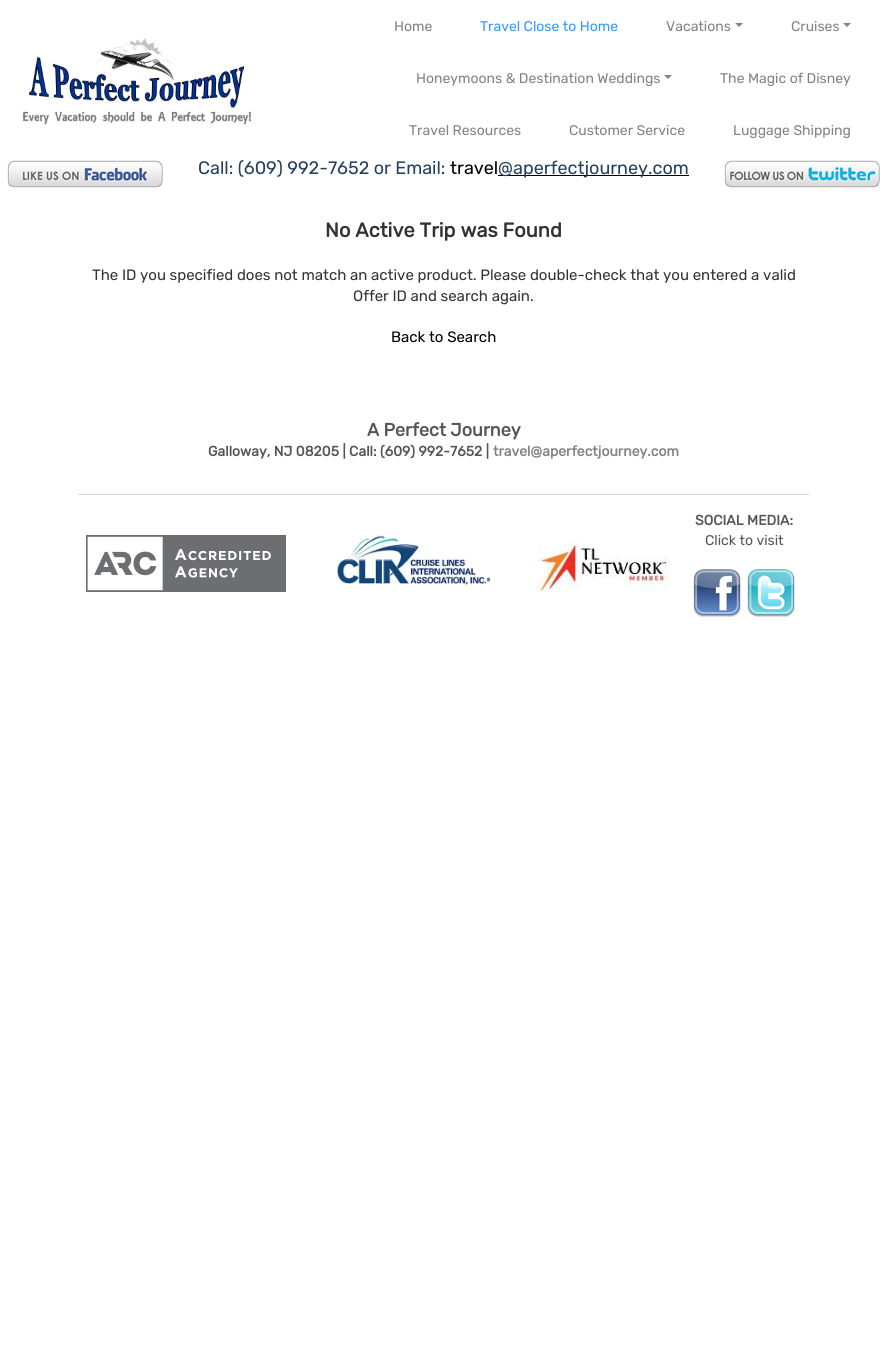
#include <cairo.h>
#include <math.h>
#include <stddef.h>

static cairo_t *ctx;

static void use_color(int r, int g, int b) {
    cairo_set_source_rgb(ctx, r / 255.0, g / 255.0, b / 255.0);
}

static void picture(const char *path, double x, double y, double w, double h) {
    cairo_surface_t *image = cairo_image_surface_create_from_png(path);
    cairo_save(ctx);
    cairo_set_source_surface(ctx, image, x, y);
    cairo_rectangle(ctx, x, y, w, h);
    cairo_fill(ctx);
    cairo_restore(ctx);
    cairo_surface_destroy(image);
}

int main(void) {
    cairo_surface_t *surface = cairo_image_surface_create(CAIRO_FORMAT_RGB24, 887, 1351);
    ctx = cairo_create(surface);
    cairo_font_options_t *options = cairo_font_options_create();
    cairo_font_options_set_hint_metrics(options, CAIRO_HINT_METRICS_OFF);
    cairo_font_options_set_hint_style(options, CAIRO_HINT_STYLE_NONE);
    cairo_set_font_options(ctx, options);
    cairo_set_miter_limit(ctx, 4);
    use_color(255, 255, 255);
    cairo_paint(ctx);
    picture("img1.png", 22, 38, 230, 87);
    cairo_select_font_face(ctx, "Rubik Light", CAIRO_FONT_SLANT_NORMAL, CAIRO_FONT_WEIGHT_NORMAL);
    cairo_set_font_size(ctx, 14);
    use_color(131, 131, 131);
    cairo_move_to(ctx, 394, 31);
    cairo_show_text(ctx, "Home");
    use_color(51, 153, 255);
    cairo_move_to(ctx, 480, 31);
    cairo_show_text(ctx, "Travel Close to Home");
    use_color(131, 131, 131);
    cairo_move_to(ctx, 666, 31);
    cairo_show_text(ctx, "Vacations");
    cairo_new_path(ctx);
    cairo_move_to(ctx, 735, 23);
    cairo_line_to(ctx, 743, 23);
    cairo_line_to(ctx, 739, 27);
    cairo_close_path(ctx);
    cairo_fill(ctx);
    cairo_move_to(ctx, 791, 31);
    cairo_show_text(ctx, "Cruises");
    cairo_new_path(ctx);
    cairo_move_to(ctx, 843, 23);
    cairo_line_to(ctx, 851, 23);
    cairo_line_to(ctx, 847, 27);
    cairo_close_path(ctx);
    cairo_fill(ctx);
    cairo_move_to(ctx, 416, 83);
    cairo_show_text(ctx, "Honeymoons & Destination Weddings");
    cairo_new_path(ctx);
    cairo_move_to(ctx, 664, 75);
    cairo_line_to(ctx, 672, 75);
    cairo_line_to(ctx, 668, 79);
    cairo_close_path(ctx);
    cairo_fill(ctx);
    cairo_move_to(ctx, 720, 83);
    cairo_show_text(ctx, "The Magic of Disney");
    cairo_move_to(ctx, 409, 135);
    cairo_show_text(ctx, "Travel Resources");
    cairo_move_to(ctx, 569, 135);
    cairo_show_text(ctx, "Customer Service");
    cairo_move_to(ctx, 733, 135);
    cairo_show_text(ctx, "Luggage Shipping");
    picture("img2.png", 7, 160, 156, 28);
    cairo_set_font_size(ctx, 18);
    use_color(36, 63, 96);
    cairo_move_to(ctx, 198, 174);
    cairo_show_text(ctx, "Call: (609) 992-7652 or Email:");
    use_color(0, 0, 0);
    cairo_move_to(ctx, 450, 174);
    cairo_show_text(ctx, "travel");
    picture("img3.png", 724, 160, 156, 28);
    cairo_rectangle(ctx, 498, 175, 191, 1);
    cairo_fill(ctx);
    use_color(36, 63, 96);
    cairo_move_to(ctx, 498, 174);
    cairo_show_text(ctx, "@aperfectjourney.com");
    cairo_select_font_face(ctx, "Rubik", CAIRO_FONT_SLANT_NORMAL, CAIRO_FONT_WEIGHT_BOLD);
    cairo_set_font_size(ctx, 20);
    use_color(51, 51, 51);
    cairo_move_to(ctx, 325, 237);
    cairo_show_text(ctx, "No Active Trip was Found");
    cairo_select_font_face(ctx, "Rubik Light", CAIRO_FONT_SLANT_NORMAL, CAIRO_FONT_WEIGHT_NORMAL);
    cairo_set_font_size(ctx, 15);
    cairo_move_to(ctx, 92, 280);
    cairo_show_text(ctx, "The ID you specified does not match an active product. Please double-check that you entered a valid");
    cairo_move_to(ctx, 353, 301);
    cairo_show_text(ctx, "Offer ID and search again.");
    use_color(0, 0, 0);
    cairo_move_to(ctx, 391, 342);
    cairo_show_text(ctx, "Back to Search");
    cairo_select_font_face(ctx, "Rubik", CAIRO_FONT_SLANT_NORMAL, CAIRO_FONT_WEIGHT_BOLD);
    cairo_set_font_size(ctx, 18);
    use_color(85, 85, 85);
    cairo_move_to(ctx, 367, 436);
    cairo_show_text(ctx, "A Perfect Journey");
    cairo_set_font_size(ctx, 14);
    cairo_move_to(ctx, 208, 456);
    cairo_show_text(ctx, "Galloway, NJ 08205 | Call: (609) 992-7652 |");
    use_color(131, 131, 131);
    cairo_move_to(ctx, 493, 456);
    cairo_show_text(ctx, "travel@aperfectjourney.com");
    use_color(213, 213, 213);
    cairo_rectangle(ctx, 78, 494, 731, 1);
    cairo_fill(ctx);
    use_color(85, 85, 85);
    cairo_move_to(ctx, 695, 525);
    cairo_show_text(ctx, "SOCIAL MEDIA:");
    cairo_select_font_face(ctx, "Rubik Light", CAIRO_FONT_SLANT_NORMAL, CAIRO_FONT_WEIGHT_NORMAL);
    cairo_move_to(ctx, 705, 545);
    cairo_show_text(ctx, "Click to visit");
    picture("img4.png", 86, 535, 200, 57);
    picture("img5.png", 336, 535, 155, 51);
    picture("img6.png", 538, 534, 131, 59);
    picture("img7.png", 693, 569, 48, 48);
    picture("img8.png", 747, 569, 48, 48);
    cairo_surface_write_to_png(surface, "result.png");
    cairo_font_options_destroy(options);
    cairo_destroy(ctx);
    cairo_surface_destroy(surface);
    return 0;
}
